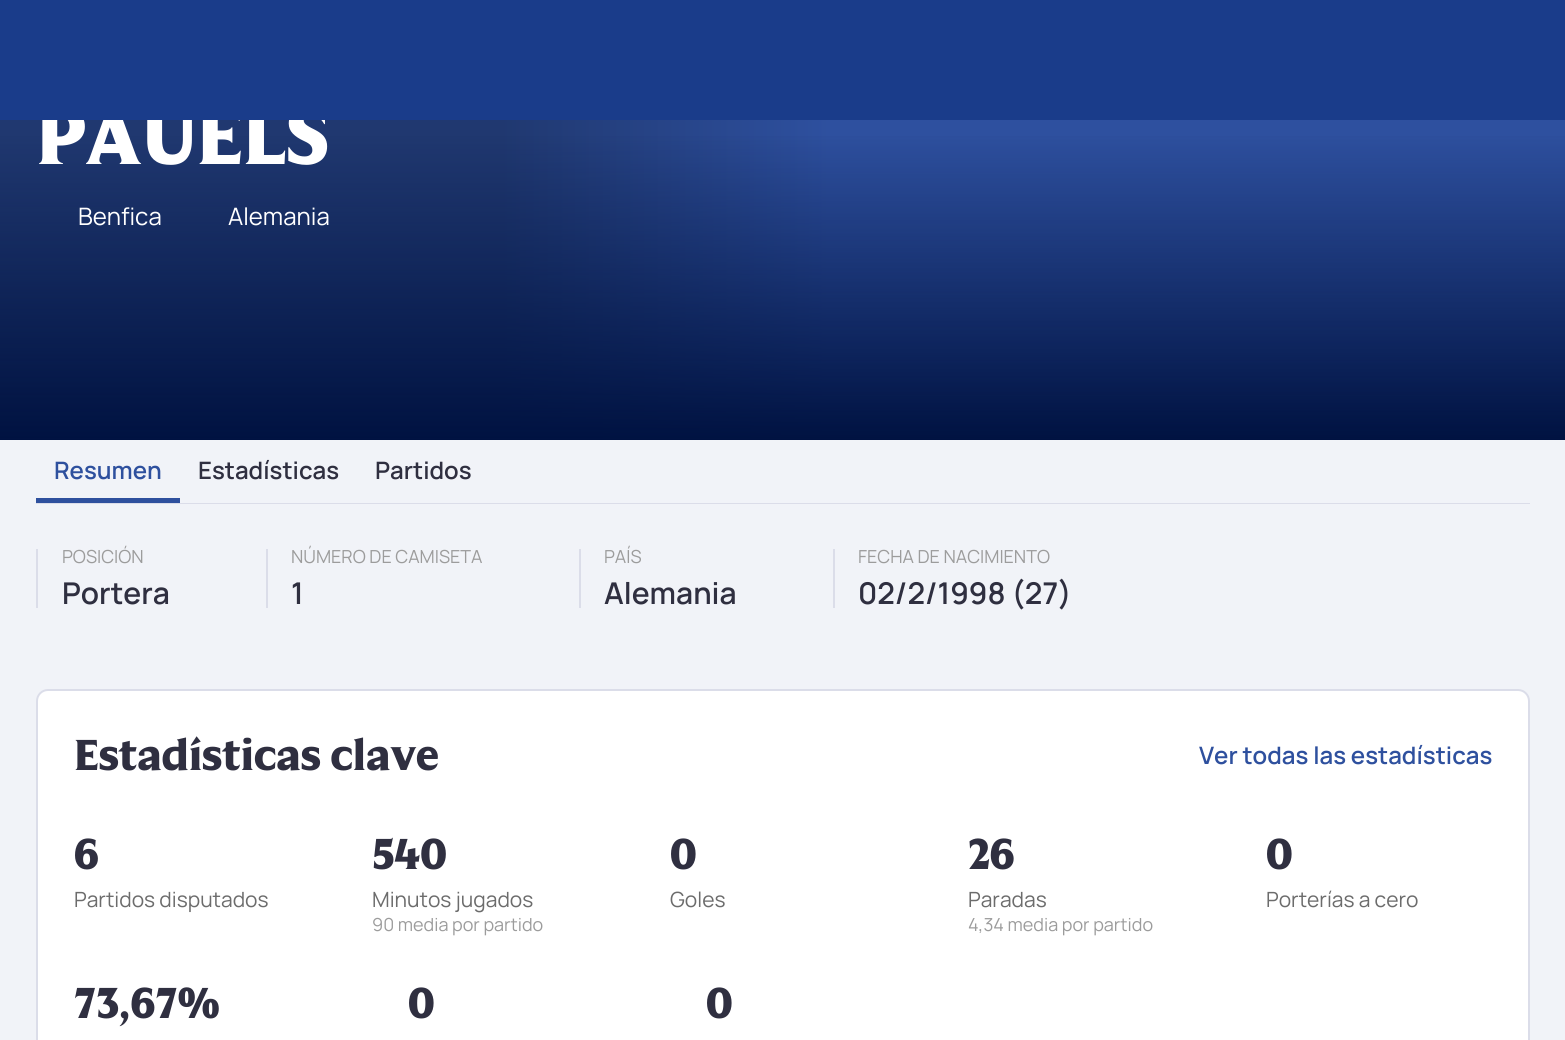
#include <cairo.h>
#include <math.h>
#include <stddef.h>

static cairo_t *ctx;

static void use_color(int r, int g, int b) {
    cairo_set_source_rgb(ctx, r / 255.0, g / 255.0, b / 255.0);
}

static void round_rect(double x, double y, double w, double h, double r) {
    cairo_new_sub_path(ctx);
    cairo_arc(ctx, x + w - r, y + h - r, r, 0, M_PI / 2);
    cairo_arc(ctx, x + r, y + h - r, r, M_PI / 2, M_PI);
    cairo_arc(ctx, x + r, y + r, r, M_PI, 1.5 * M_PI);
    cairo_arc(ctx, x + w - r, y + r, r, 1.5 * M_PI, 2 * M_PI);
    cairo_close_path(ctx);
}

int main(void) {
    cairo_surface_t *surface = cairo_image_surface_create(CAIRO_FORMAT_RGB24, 1565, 1040);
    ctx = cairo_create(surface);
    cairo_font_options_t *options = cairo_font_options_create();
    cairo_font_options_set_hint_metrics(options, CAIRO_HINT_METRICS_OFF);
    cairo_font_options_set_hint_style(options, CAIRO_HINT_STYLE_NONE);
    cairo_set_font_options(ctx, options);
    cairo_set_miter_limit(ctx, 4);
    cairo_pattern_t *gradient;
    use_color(241, 243, 248);
    cairo_paint(ctx);
    gradient = cairo_pattern_create_linear(0, 110, 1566, 109);
    cairo_pattern_add_color_stop_rgba(gradient, 0.32, 0.125, 0.22, 0.439, 1);
    cairo_pattern_add_color_stop_rgba(gradient, 0.53, 0.18, 0.314, 0.624, 1);
    cairo_set_source(ctx, gradient);
    cairo_pattern_destroy(gradient);
    cairo_rectangle(ctx, 0, 120, 1565, 318);
    cairo_fill(ctx);
    gradient = cairo_pattern_create_linear(783, 440, 783, -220);
    cairo_pattern_add_color_stop_rgba(gradient, 0, 0, 0.071, 0.255, 1);
    cairo_pattern_add_color_stop_rgba(gradient, 0.47, 0, 0.071, 0.255, 0);
    cairo_set_source(ctx, gradient);
    cairo_pattern_destroy(gradient);
    cairo_rectangle(ctx, 0, 136, 1565, 304);
    cairo_fill(ctx);
    cairo_select_font_face(ctx, "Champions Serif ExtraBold", CAIRO_FONT_SLANT_NORMAL, CAIRO_FONT_WEIGHT_NORMAL);
    cairo_set_font_size(ctx, 90);
    use_color(255, 255, 255);
    cairo_move_to(ctx, 36, 164);
    cairo_show_text(ctx, "PAUELS");
    use_color(26, 60, 138);
    cairo_rectangle(ctx, 0, 0, 1565, 120);
    cairo_fill(ctx);
    cairo_select_font_face(ctx, "Manrope", CAIRO_FONT_SLANT_NORMAL, CAIRO_FONT_WEIGHT_NORMAL);
    cairo_set_font_size(ctx, 24);
    use_color(255, 255, 255);
    cairo_move_to(ctx, 78, 225);
    cairo_show_text(ctx, "Benfica");
    cairo_move_to(ctx, 228, 225);
    cairo_show_text(ctx, "Alemania");
    use_color(219, 221, 233);
    cairo_rectangle(ctx, 36, 503, 1494, 1);
    cairo_fill(ctx);
    cairo_select_font_face(ctx, "Manrope SemiBold", CAIRO_FONT_SLANT_NORMAL, CAIRO_FONT_WEIGHT_NORMAL);
    use_color(46, 80, 158);
    cairo_move_to(ctx, 54, 479);
    cairo_show_text(ctx, "Resumen");
    cairo_rectangle(ctx, 36, 498, 144, 5);
    cairo_fill(ctx);
    use_color(47, 47, 64);
    cairo_move_to(ctx, 198, 479);
    cairo_show_text(ctx, "Estadísticas");
    cairo_move_to(ctx, 375, 479);
    cairo_show_text(ctx, "Partidos");
    use_color(219, 221, 233);
    cairo_rectangle(ctx, 36, 549, 2, 59);
    cairo_fill(ctx);
    cairo_select_font_face(ctx, "Manrope", CAIRO_FONT_SLANT_NORMAL, CAIRO_FONT_WEIGHT_NORMAL);
    cairo_set_font_size(ctx, 18);
    use_color(156, 156, 156);
    cairo_move_to(ctx, 62, 563);
    cairo_show_text(ctx, "POSICIÓN");
    cairo_select_font_face(ctx, "Manrope SemiBold", CAIRO_FONT_SLANT_NORMAL, CAIRO_FONT_WEIGHT_NORMAL);
    cairo_set_font_size(ctx, 30);
    use_color(47, 47, 64);
    cairo_move_to(ctx, 62, 604);
    cairo_show_text(ctx, "Portera");
    use_color(219, 221, 233);
    cairo_rectangle(ctx, 266, 549, 2, 59);
    cairo_fill(ctx);
    cairo_select_font_face(ctx, "Manrope", CAIRO_FONT_SLANT_NORMAL, CAIRO_FONT_WEIGHT_NORMAL);
    cairo_set_font_size(ctx, 18);
    use_color(156, 156, 156);
    cairo_move_to(ctx, 291, 563);
    cairo_show_text(ctx, "NÚMERO DE CAMISETA");
    cairo_select_font_face(ctx, "Manrope SemiBold", CAIRO_FONT_SLANT_NORMAL, CAIRO_FONT_WEIGHT_NORMAL);
    cairo_set_font_size(ctx, 30);
    use_color(47, 47, 64);
    cairo_move_to(ctx, 291, 604);
    cairo_show_text(ctx, "1");
    use_color(219, 221, 233);
    cairo_rectangle(ctx, 579, 549, 2, 59);
    cairo_fill(ctx);
    cairo_select_font_face(ctx, "Manrope", CAIRO_FONT_SLANT_NORMAL, CAIRO_FONT_WEIGHT_NORMAL);
    cairo_set_font_size(ctx, 18);
    use_color(156, 156, 156);
    cairo_move_to(ctx, 604, 563);
    cairo_show_text(ctx, "PAÍS");
    cairo_select_font_face(ctx, "Manrope SemiBold", CAIRO_FONT_SLANT_NORMAL, CAIRO_FONT_WEIGHT_NORMAL);
    cairo_set_font_size(ctx, 30);
    use_color(47, 47, 64);
    cairo_move_to(ctx, 604, 604);
    cairo_show_text(ctx, "Alemania");
    use_color(219, 221, 233);
    cairo_rectangle(ctx, 833, 549, 2, 59);
    cairo_fill(ctx);
    cairo_select_font_face(ctx, "Manrope", CAIRO_FONT_SLANT_NORMAL, CAIRO_FONT_WEIGHT_NORMAL);
    cairo_set_font_size(ctx, 18);
    use_color(156, 156, 156);
    cairo_move_to(ctx, 858, 563);
    cairo_show_text(ctx, "FECHA DE NACIMIENTO");
    cairo_select_font_face(ctx, "Manrope SemiBold", CAIRO_FONT_SLANT_NORMAL, CAIRO_FONT_WEIGHT_NORMAL);
    cairo_set_font_size(ctx, 30);
    use_color(47, 47, 64);
    cairo_move_to(ctx, 858, 604);
    cairo_show_text(ctx, "02/2/1998 (27)");
    use_color(255, 255, 255);
    round_rect(37, 690, 1492, 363, 11);
    cairo_fill_preserve(ctx);
    use_color(219, 221, 233);
    cairo_stroke(ctx);
    cairo_select_font_face(ctx, "Champions Serif ExtraBold", CAIRO_FONT_SLANT_NORMAL, CAIRO_FONT_WEIGHT_NORMAL);
    cairo_set_font_size(ctx, 48);
    use_color(47, 47, 64);
    cairo_move_to(ctx, 74, 770);
    cairo_show_text(ctx, "Estadísticas clave");
    cairo_select_font_face(ctx, "Manrope SemiBold", CAIRO_FONT_SLANT_NORMAL, CAIRO_FONT_WEIGHT_NORMAL);
    cairo_set_font_size(ctx, 24);
    use_color(46, 80, 158);
    cairo_move_to(ctx, 1199, 764);
    cairo_show_text(ctx, "Ver todas las estadísticas");
    cairo_select_font_face(ctx, "Champions Serif ExtraBold", CAIRO_FONT_SLANT_NORMAL, CAIRO_FONT_WEIGHT_NORMAL);
    cairo_set_font_size(ctx, 48);
    use_color(47, 47, 64);
    cairo_move_to(ctx, 74, 869);
    cairo_show_text(ctx, "6");
    cairo_select_font_face(ctx, "Manrope", CAIRO_FONT_SLANT_NORMAL, CAIRO_FONT_WEIGHT_NORMAL);
    cairo_set_font_size(ctx, 21);
    use_color(108, 108, 108);
    cairo_move_to(ctx, 74, 907);
    cairo_show_text(ctx, "Partidos disputados");
    cairo_select_font_face(ctx, "Champions Serif ExtraBold", CAIRO_FONT_SLANT_NORMAL, CAIRO_FONT_WEIGHT_NORMAL);
    cairo_set_font_size(ctx, 48);
    use_color(47, 47, 64);
    cairo_move_to(ctx, 372, 869);
    cairo_show_text(ctx, "540");
    cairo_select_font_face(ctx, "Manrope", CAIRO_FONT_SLANT_NORMAL, CAIRO_FONT_WEIGHT_NORMAL);
    cairo_set_font_size(ctx, 21);
    use_color(108, 108, 108);
    cairo_move_to(ctx, 372, 907);
    cairo_show_text(ctx, "Minutos jugados");
    cairo_set_font_size(ctx, 18);
    use_color(156, 156, 156);
    cairo_move_to(ctx, 372, 931);
    cairo_show_text(ctx, "90 media por partido");
    cairo_select_font_face(ctx, "Champions Serif ExtraBold", CAIRO_FONT_SLANT_NORMAL, CAIRO_FONT_WEIGHT_NORMAL);
    cairo_set_font_size(ctx, 48);
    use_color(47, 47, 64);
    cairo_move_to(ctx, 670, 869);
    cairo_show_text(ctx, "0");
    cairo_select_font_face(ctx, "Manrope", CAIRO_FONT_SLANT_NORMAL, CAIRO_FONT_WEIGHT_NORMAL);
    cairo_set_font_size(ctx, 21);
    use_color(108, 108, 108);
    cairo_move_to(ctx, 670, 907);
    cairo_show_text(ctx, "Goles");
    cairo_select_font_face(ctx, "Champions Serif ExtraBold", CAIRO_FONT_SLANT_NORMAL, CAIRO_FONT_WEIGHT_NORMAL);
    cairo_set_font_size(ctx, 48);
    use_color(47, 47, 64);
    cairo_move_to(ctx, 968, 869);
    cairo_show_text(ctx, "26");
    cairo_select_font_face(ctx, "Manrope", CAIRO_FONT_SLANT_NORMAL, CAIRO_FONT_WEIGHT_NORMAL);
    cairo_set_font_size(ctx, 21);
    use_color(108, 108, 108);
    cairo_move_to(ctx, 968, 907);
    cairo_show_text(ctx, "Paradas");
    cairo_set_font_size(ctx, 18);
    use_color(156, 156, 156);
    cairo_move_to(ctx, 968, 931);
    cairo_show_text(ctx, "4,34 media por partido");
    cairo_select_font_face(ctx, "Champions Serif ExtraBold", CAIRO_FONT_SLANT_NORMAL, CAIRO_FONT_WEIGHT_NORMAL);
    cairo_set_font_size(ctx, 48);
    use_color(47, 47, 64);
    cairo_move_to(ctx, 1266, 869);
    cairo_show_text(ctx, "0");
    cairo_select_font_face(ctx, "Manrope", CAIRO_FONT_SLANT_NORMAL, CAIRO_FONT_WEIGHT_NORMAL);
    cairo_set_font_size(ctx, 21);
    use_color(108, 108, 108);
    cairo_move_to(ctx, 1266, 907);
    cairo_show_text(ctx, "Porterías a cero");
    cairo_select_font_face(ctx, "Champions Serif ExtraBold", CAIRO_FONT_SLANT_NORMAL, CAIRO_FONT_WEIGHT_NORMAL);
    cairo_set_font_size(ctx, 48);
    use_color(47, 47, 64);
    cairo_move_to(ctx, 74, 1018);
    cairo_show_text(ctx, "73,67%");
    cairo_move_to(ctx, 408, 1018);
    cairo_show_text(ctx, "0");
    cairo_move_to(ctx, 706, 1018);
    cairo_show_text(ctx, "0");
    cairo_surface_write_to_png(surface, "result.png");
    cairo_font_options_destroy(options);
    cairo_destroy(ctx);
    cairo_surface_destroy(surface);
    return 0;
}
